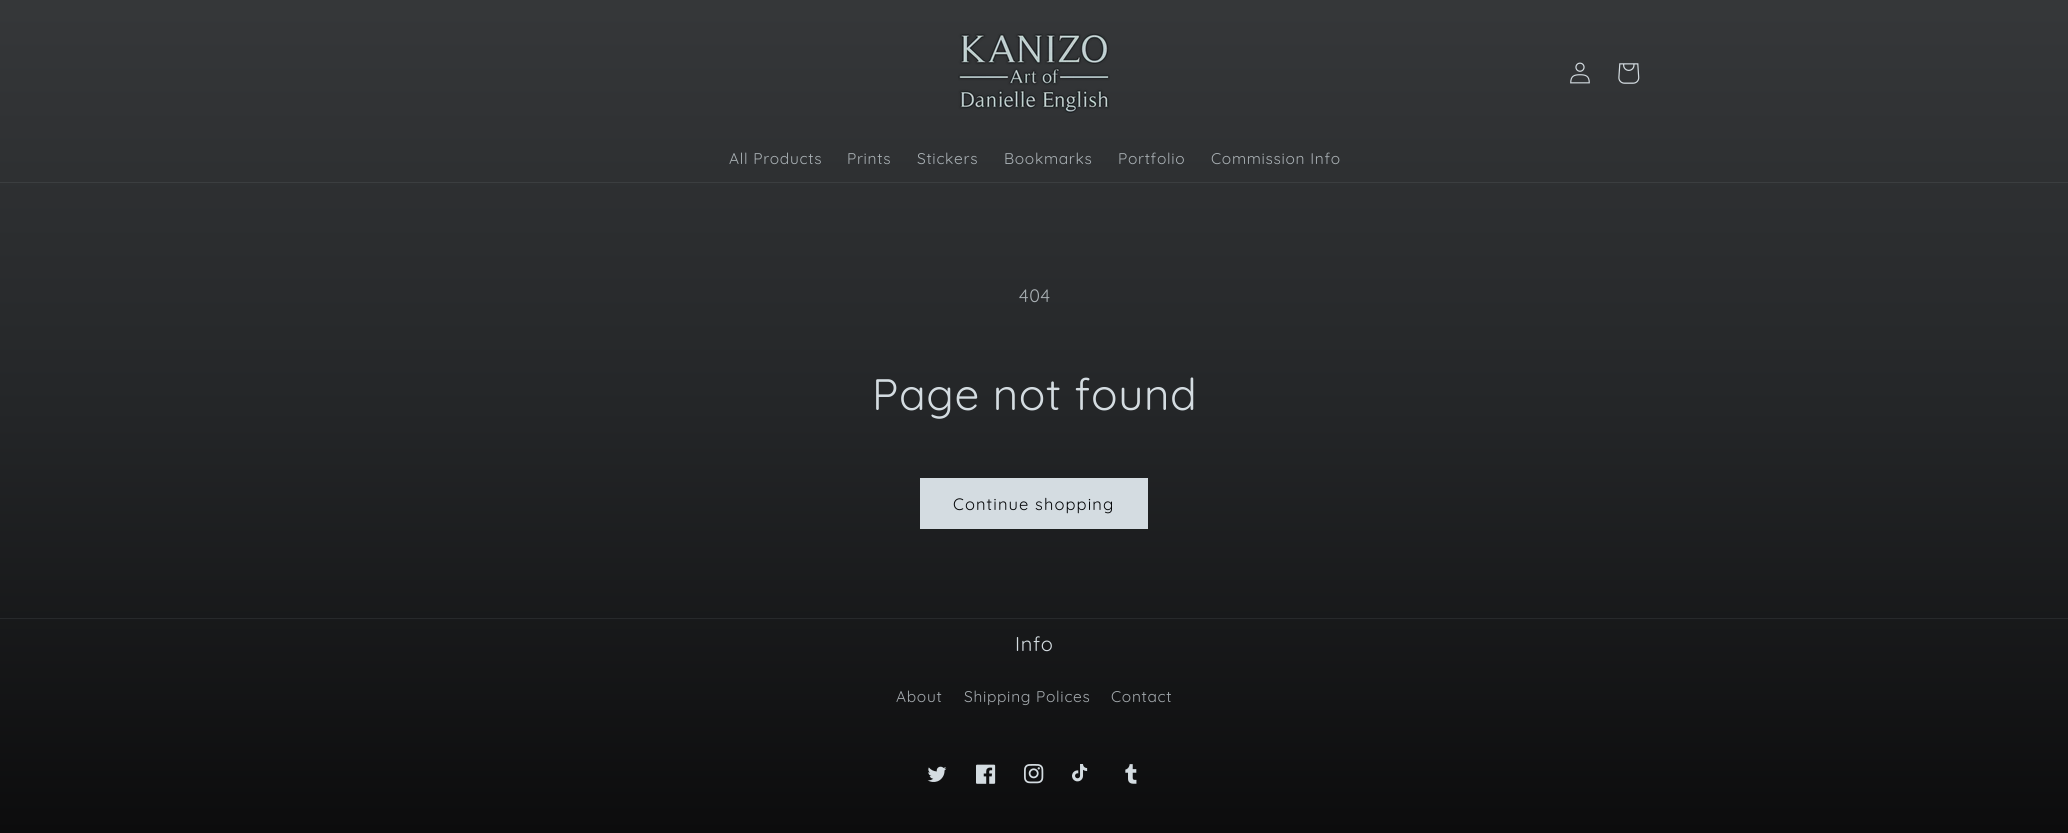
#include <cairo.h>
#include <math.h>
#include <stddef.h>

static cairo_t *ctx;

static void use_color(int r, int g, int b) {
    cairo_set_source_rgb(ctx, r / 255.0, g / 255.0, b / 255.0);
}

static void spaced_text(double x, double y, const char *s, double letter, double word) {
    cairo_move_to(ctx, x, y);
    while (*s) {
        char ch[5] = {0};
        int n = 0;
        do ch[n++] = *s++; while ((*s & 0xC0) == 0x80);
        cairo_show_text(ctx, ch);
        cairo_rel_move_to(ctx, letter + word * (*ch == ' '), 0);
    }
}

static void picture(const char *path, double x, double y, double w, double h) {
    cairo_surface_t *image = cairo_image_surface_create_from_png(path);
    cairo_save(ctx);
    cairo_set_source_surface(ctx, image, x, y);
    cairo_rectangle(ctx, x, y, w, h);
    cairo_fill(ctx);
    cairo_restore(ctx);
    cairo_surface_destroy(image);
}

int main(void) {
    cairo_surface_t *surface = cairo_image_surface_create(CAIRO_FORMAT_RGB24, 2068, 833);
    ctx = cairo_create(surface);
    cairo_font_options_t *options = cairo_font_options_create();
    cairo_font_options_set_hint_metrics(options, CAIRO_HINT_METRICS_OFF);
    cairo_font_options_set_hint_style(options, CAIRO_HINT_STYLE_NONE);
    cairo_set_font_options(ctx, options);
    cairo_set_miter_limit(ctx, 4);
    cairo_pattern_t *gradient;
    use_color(255, 255, 255);
    cairo_paint(ctx);
    gradient = cairo_pattern_create_linear(1034, 0, 1034, 833);
    cairo_pattern_add_color_stop_rgba(gradient, 0.01, 0.208, 0.216, 0.224, 1);
    cairo_pattern_add_color_stop_rgba(gradient, 0.49, 0.141, 0.149, 0.157, 1);
    cairo_pattern_add_color_stop_rgba(gradient, 1, 0.047, 0.047, 0.051, 1);
    cairo_set_source(ctx, gradient);
    cairo_pattern_destroy(gradient);
    cairo_rectangle(ctx, 0, 0, 2068, 833);
    cairo_fill(ctx);
    use_color(59, 62, 64);
    cairo_rectangle(ctx, 0, 182, 2068, 1);
    cairo_fill(ctx);
    picture("img1.png", 958, 33, 152, 80);
    picture("img2.png", 1570, 62, 20, 22);
    picture("img3.png", 1618, 63, 22, 21);
    cairo_select_font_face(ctx, "Quicksand", CAIRO_FONT_SLANT_NORMAL, CAIRO_FONT_WEIGHT_NORMAL);
    cairo_set_font_size(ctx, 15.5);
    use_color(169, 176, 180);
    spaced_text(729, 164, "All Products", 0.7, 0);
    spaced_text(847, 164, "Prints", 0.7, 0);
    spaced_text(917, 164, "Stickers", 0.7, 0);
    spaced_text(1004, 164, "Bookmarks", 0.7, 0);
    spaced_text(1118, 164, "Portfolio", 0.7, 0);
    spaced_text(1211, 164, "Commission Info", 0.7, 0);
    cairo_set_font_size(ctx, 18);
    spaced_text(1019, 302, "404", 0.7, 0);
    cairo_set_font_size(ctx, 44);
    use_color(212, 220, 225);
    spaced_text(872, 410, "Page not found", 0.7, 0);
    cairo_rectangle(ctx, 920, 478, 228, 51);
    cairo_fill(ctx);
    cairo_set_font_size(ctx, 16.5);
    use_color(5, 7, 9);
    spaced_text(953, 510, "Continue shopping", 1.1, 0);
    use_color(39, 41, 43);
    cairo_rectangle(ctx, 0, 618, 2068, 1);
    cairo_fill(ctx);
    cairo_set_font_size(ctx, 20);
    use_color(212, 220, 225);
    spaced_text(1015, 651, "Info", 0.7, 0);
    cairo_set_font_size(ctx, 15.5);
    use_color(164, 170, 174);
    spaced_text(896, 702, "About", 0.7, 0);
    spaced_text(964, 702, "Shipping Polices", 0.7, 0);
    spaced_text(1111, 702, "Contact", 0.7, 0);
    picture("img4.png", 927, 766, 20, 16);
    picture("img5.png", 976, 764, 20, 20);
    picture("img6.png", 1024, 764, 20, 20);
    picture("img7.png", 1072, 764, 16, 18);
    picture("img8.png", 1125, 764, 12, 20);
    cairo_surface_write_to_png(surface, "result.png");
    cairo_font_options_destroy(options);
    cairo_destroy(ctx);
    cairo_surface_destroy(surface);
    return 0;
}
